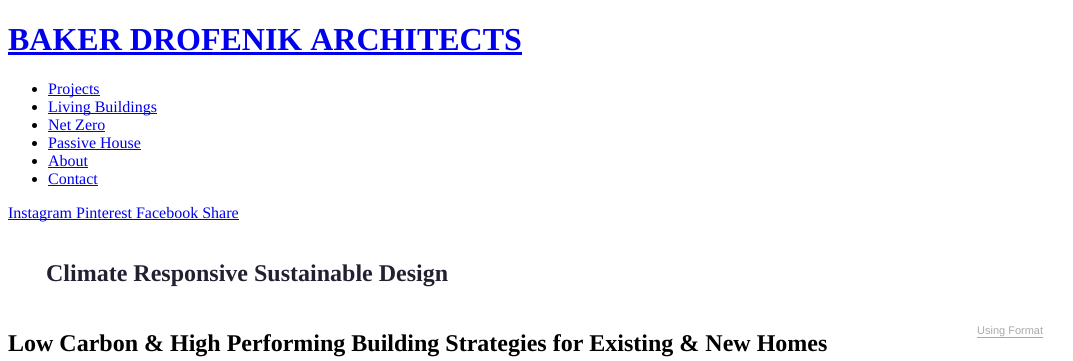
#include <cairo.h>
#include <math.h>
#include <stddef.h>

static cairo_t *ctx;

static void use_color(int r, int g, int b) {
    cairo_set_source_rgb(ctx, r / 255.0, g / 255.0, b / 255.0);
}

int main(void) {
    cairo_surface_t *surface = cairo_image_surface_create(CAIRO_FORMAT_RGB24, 1073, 361);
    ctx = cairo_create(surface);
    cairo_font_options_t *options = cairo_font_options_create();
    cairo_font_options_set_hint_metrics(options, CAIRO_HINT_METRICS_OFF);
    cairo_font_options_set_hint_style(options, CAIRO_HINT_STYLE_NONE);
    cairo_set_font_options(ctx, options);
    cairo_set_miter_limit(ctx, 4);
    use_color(255, 255, 255);
    cairo_paint(ctx);
    cairo_select_font_face(ctx, "Liberation Serif", CAIRO_FONT_SLANT_NORMAL, CAIRO_FONT_WEIGHT_BOLD);
    cairo_set_font_size(ctx, 32);
    use_color(0, 0, 238);
    cairo_move_to(ctx, 8, 50);
    cairo_show_text(ctx, "BAKER DROFENIK ARCHITECTS");
    cairo_rectangle(ctx, 8, 52, 514, 3);
    cairo_fill(ctx);
    use_color(0, 0, 0);
    cairo_arc(ctx, 34.5, 89.5, 2.5, 0, 2 * M_PI);
    cairo_fill(ctx);
    use_color(0, 0, 238);
    cairo_rectangle(ctx, 48, 95, 52, 1);
    cairo_fill(ctx);
    cairo_select_font_face(ctx, "Liberation Serif", CAIRO_FONT_SLANT_NORMAL, CAIRO_FONT_WEIGHT_NORMAL);
    cairo_set_font_size(ctx, 16);
    cairo_move_to(ctx, 48, 94);
    cairo_show_text(ctx, "Projects");
    use_color(0, 0, 0);
    cairo_new_path(ctx);
    cairo_arc(ctx, 34.5, 107.5, 2.5, 0, 2 * M_PI);
    cairo_fill(ctx);
    use_color(0, 0, 238);
    cairo_rectangle(ctx, 48, 113, 109, 1);
    cairo_fill(ctx);
    cairo_move_to(ctx, 48, 112);
    cairo_show_text(ctx, "Living Buildings");
    use_color(0, 0, 0);
    cairo_new_path(ctx);
    cairo_arc(ctx, 34.5, 125.5, 2.5, 0, 2 * M_PI);
    cairo_fill(ctx);
    use_color(0, 0, 238);
    cairo_move_to(ctx, 48, 130);
    cairo_show_text(ctx, "Net Zero");
    cairo_rectangle(ctx, 48, 131, 57, 1);
    cairo_fill(ctx);
    use_color(0, 0, 0);
    cairo_arc(ctx, 34.5, 143.5, 2.5, 0, 2 * M_PI);
    cairo_fill(ctx);
    use_color(0, 0, 238);
    cairo_move_to(ctx, 48, 148);
    cairo_show_text(ctx, "Passive House");
    cairo_rectangle(ctx, 48, 149, 93, 1);
    cairo_fill(ctx);
    use_color(0, 0, 0);
    cairo_arc(ctx, 34.5, 161.5, 2.5, 0, 2 * M_PI);
    cairo_fill(ctx);
    use_color(0, 0, 238);
    cairo_move_to(ctx, 48, 166);
    cairo_show_text(ctx, "About");
    cairo_rectangle(ctx, 48, 167, 40, 1);
    cairo_fill(ctx);
    use_color(0, 0, 0);
    cairo_arc(ctx, 34.5, 179.5, 2.5, 0, 2 * M_PI);
    cairo_fill(ctx);
    use_color(0, 0, 238);
    cairo_move_to(ctx, 48, 184);
    cairo_show_text(ctx, "Contact");
    cairo_rectangle(ctx, 48, 185, 50, 1);
    cairo_fill(ctx);
    cairo_rectangle(ctx, 8, 219, 231, 1);
    cairo_fill(ctx);
    cairo_move_to(ctx, 8, 218);
    cairo_show_text(ctx, "Instagram Pinterest Facebook Share");
    cairo_select_font_face(ctx, "Liberation Serif", CAIRO_FONT_SLANT_NORMAL, CAIRO_FONT_WEIGHT_BOLD);
    cairo_set_font_size(ctx, 24);
    use_color(36, 31, 49);
    cairo_move_to(ctx, 46, 281);
    cairo_show_text(ctx, "Climate Responsive Sustainable Design");
    use_color(0, 0, 0);
    cairo_move_to(ctx, 8, 351);
    cairo_show_text(ctx, "Low Carbon & High Performing Building Strategies for Existing & New Homes");
    cairo_select_font_face(ctx, "Liberation Sans", CAIRO_FONT_SLANT_NORMAL, CAIRO_FONT_WEIGHT_NORMAL);
    cairo_set_font_size(ctx, 11);
    use_color(170, 170, 170);
    cairo_move_to(ctx, 977, 334);
    cairo_show_text(ctx, "Using Format");
    cairo_rectangle(ctx, 977, 337, 66, 1);
    cairo_fill(ctx);
    cairo_surface_write_to_png(surface, "result.png");
    cairo_font_options_destroy(options);
    cairo_destroy(ctx);
    cairo_surface_destroy(surface);
    return 0;
}
